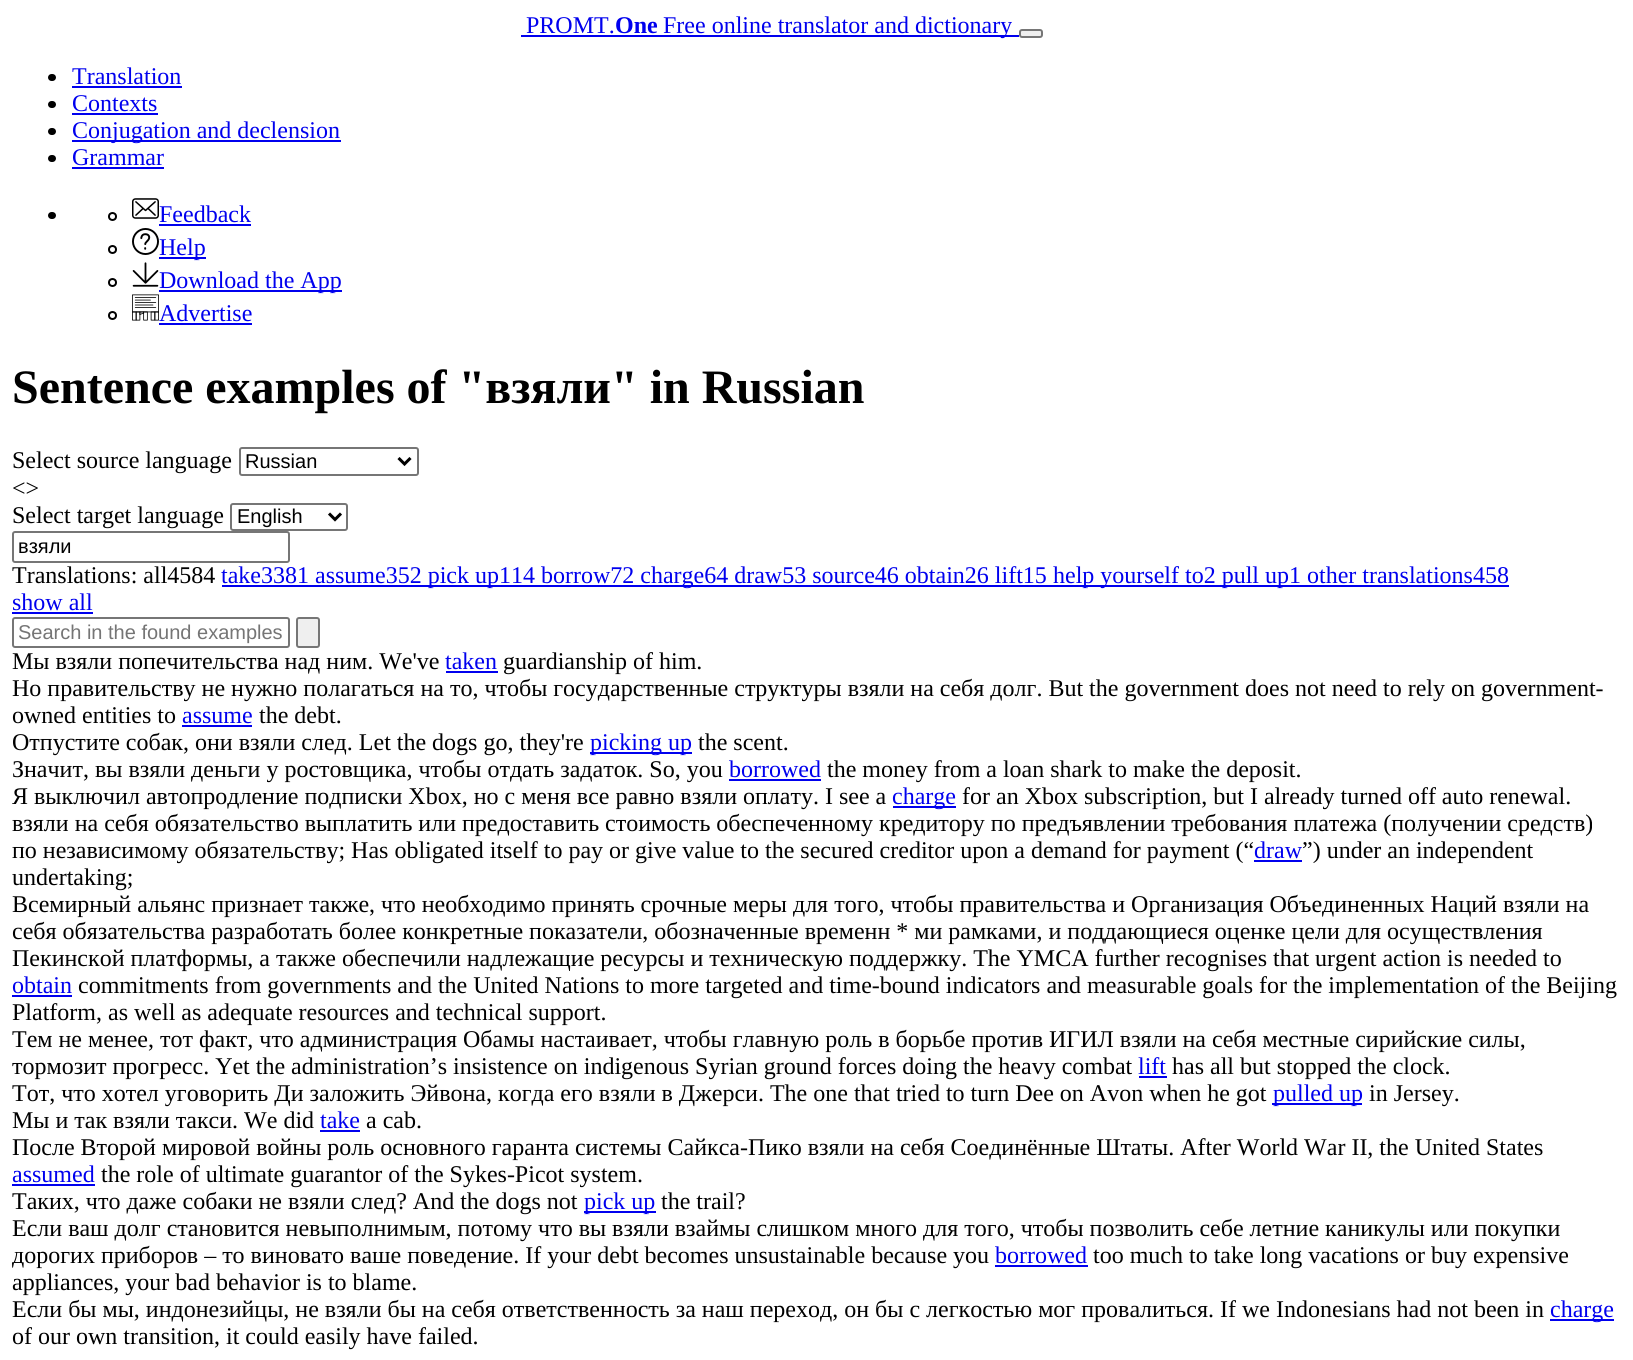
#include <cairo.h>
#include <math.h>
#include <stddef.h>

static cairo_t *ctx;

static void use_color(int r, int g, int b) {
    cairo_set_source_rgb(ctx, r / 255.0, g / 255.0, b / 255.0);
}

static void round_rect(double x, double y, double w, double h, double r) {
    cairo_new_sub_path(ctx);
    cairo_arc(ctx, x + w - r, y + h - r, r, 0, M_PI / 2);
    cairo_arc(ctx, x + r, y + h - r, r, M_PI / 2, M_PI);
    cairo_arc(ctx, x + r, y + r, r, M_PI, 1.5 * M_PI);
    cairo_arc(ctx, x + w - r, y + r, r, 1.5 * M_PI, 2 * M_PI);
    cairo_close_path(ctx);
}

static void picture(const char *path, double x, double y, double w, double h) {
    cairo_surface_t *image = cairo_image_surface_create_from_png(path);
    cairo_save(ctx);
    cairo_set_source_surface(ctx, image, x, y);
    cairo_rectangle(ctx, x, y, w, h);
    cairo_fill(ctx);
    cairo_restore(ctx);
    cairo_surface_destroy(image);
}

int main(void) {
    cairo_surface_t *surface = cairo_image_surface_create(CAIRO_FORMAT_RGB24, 1633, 1360);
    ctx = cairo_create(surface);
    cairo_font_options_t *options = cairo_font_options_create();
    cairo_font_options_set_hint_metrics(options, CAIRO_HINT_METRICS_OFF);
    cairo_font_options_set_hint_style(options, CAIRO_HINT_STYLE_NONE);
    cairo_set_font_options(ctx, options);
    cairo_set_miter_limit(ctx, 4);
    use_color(255, 255, 255);
    cairo_paint(ctx);
    cairo_select_font_face(ctx, "Liberation Serif", CAIRO_FONT_SLANT_NORMAL, CAIRO_FONT_WEIGHT_NORMAL);
    cairo_set_font_size(ctx, 24);
    use_color(0, 0, 238);
    cairo_move_to(ctx, 526, 33);
    cairo_show_text(ctx, "PROMT.");
    cairo_select_font_face(ctx, "Liberation Serif", CAIRO_FONT_SLANT_NORMAL, CAIRO_FONT_WEIGHT_BOLD);
    cairo_move_to(ctx, 615, 33);
    cairo_show_text(ctx, "One");
    cairo_rectangle(ctx, 521, 35, 498, 2);
    cairo_fill(ctx);
    cairo_select_font_face(ctx, "Liberation Serif", CAIRO_FONT_SLANT_NORMAL, CAIRO_FONT_WEIGHT_NORMAL);
    cairo_move_to(ctx, 663, 33);
    cairo_show_text(ctx, "Free online translator and dictionary");
    use_color(239, 239, 239);
    round_rect(1020, 30, 22, 7, 2);
    cairo_fill_preserve(ctx);
    use_color(118, 118, 118);
    cairo_stroke(ctx);
    use_color(0, 0, 0);
    round_rect(48, 74, 8, 7, 3.5);
    cairo_fill(ctx);
    use_color(0, 0, 238);
    cairo_move_to(ctx, 72, 84);
    cairo_show_text(ctx, "Translation");
    cairo_rectangle(ctx, 72, 86, 110, 2);
    cairo_fill(ctx);
    use_color(0, 0, 0);
    round_rect(48, 101, 8, 7, 3.5);
    cairo_fill(ctx);
    use_color(0, 0, 238);
    cairo_move_to(ctx, 72, 111);
    cairo_show_text(ctx, "Contexts");
    cairo_rectangle(ctx, 72, 113, 86, 2);
    cairo_fill(ctx);
    use_color(0, 0, 0);
    round_rect(48, 128, 8, 7, 3.5);
    cairo_fill(ctx);
    use_color(0, 0, 238);
    cairo_rectangle(ctx, 72, 140, 269, 2);
    cairo_fill(ctx);
    cairo_move_to(ctx, 72, 138);
    cairo_show_text(ctx, "Conjugation and declension");
    use_color(0, 0, 0);
    round_rect(48, 155, 8, 7, 3.5);
    cairo_fill(ctx);
    use_color(0, 0, 238);
    cairo_move_to(ctx, 72, 165);
    cairo_show_text(ctx, "Grammar");
    cairo_rectangle(ctx, 72, 167, 92, 2);
    cairo_fill(ctx);
    use_color(0, 0, 0);
    round_rect(48, 212, 8, 7, 3.5);
    cairo_fill(ctx);
    cairo_arc(ctx, 112.5, 216.5, 3.5, 0, 2 * M_PI);
    cairo_stroke(ctx);
    picture("img1.png", 132, 198, 27, 21);
    use_color(0, 0, 238);
    cairo_move_to(ctx, 159, 222);
    cairo_show_text(ctx, "Feedback");
    cairo_rectangle(ctx, 159, 224, 92, 2);
    cairo_fill(ctx);
    cairo_arc(ctx, 112.5, 249.5, 3.5, 0, 2 * M_PI);
    use_color(0, 0, 0);
    cairo_stroke(ctx);
    picture("img2.png", 132, 228, 27, 27);
    use_color(0, 0, 238);
    cairo_rectangle(ctx, 159, 257, 47, 2);
    cairo_fill(ctx);
    cairo_move_to(ctx, 159, 255);
    cairo_show_text(ctx, "Help");
    cairo_new_path(ctx);
    cairo_arc(ctx, 112.5, 282.5, 3.5, 0, 2 * M_PI);
    use_color(0, 0, 0);
    cairo_stroke(ctx);
    picture("img3.png", 132, 262, 27, 25);
    use_color(0, 0, 238);
    cairo_rectangle(ctx, 159, 290, 183, 2);
    cairo_fill(ctx);
    cairo_move_to(ctx, 159, 288);
    cairo_show_text(ctx, "Download the App");
    cairo_new_path(ctx);
    cairo_arc(ctx, 112.5, 315.5, 3.5, 0, 2 * M_PI);
    use_color(0, 0, 0);
    cairo_stroke(ctx);
    picture("img4.png", 132, 294, 27, 27);
    use_color(0, 0, 238);
    cairo_move_to(ctx, 159, 321);
    cairo_show_text(ctx, "Advertise");
    cairo_rectangle(ctx, 159, 323, 93, 2);
    cairo_fill(ctx);
    cairo_select_font_face(ctx, "Liberation Serif", CAIRO_FONT_SLANT_NORMAL, CAIRO_FONT_WEIGHT_BOLD);
    cairo_set_font_size(ctx, 48);
    use_color(0, 0, 0);
    cairo_move_to(ctx, 12, 403);
    cairo_show_text(ctx, "Sentence examples of \"взяли\" in Russian");
    cairo_select_font_face(ctx, "Liberation Serif", CAIRO_FONT_SLANT_NORMAL, CAIRO_FONT_WEIGHT_NORMAL);
    cairo_set_font_size(ctx, 24);
    cairo_move_to(ctx, 12, 468);
    cairo_show_text(ctx, "Select source language");
    round_rect(240, 448, 178, 27, 2);
    use_color(118, 118, 118);
    cairo_stroke(ctx);
    cairo_new_path(ctx);
    cairo_move_to(ctx, 398.5, 458);
    cairo_line_to(ctx, 404.5, 464);
    cairo_line_to(ctx, 410.5, 458);
    use_color(0, 0, 0);
    cairo_set_line_width(ctx, 3);
    cairo_stroke(ctx);
    cairo_select_font_face(ctx, "Liberation Sans", CAIRO_FONT_SLANT_NORMAL, CAIRO_FONT_WEIGHT_NORMAL);
    cairo_set_font_size(ctx, 20);
    cairo_move_to(ctx, 245, 468);
    cairo_show_text(ctx, "Russian");
    cairo_select_font_face(ctx, "Liberation Serif", CAIRO_FONT_SLANT_NORMAL, CAIRO_FONT_WEIGHT_NORMAL);
    cairo_set_font_size(ctx, 24);
    cairo_move_to(ctx, 12, 496);
    cairo_show_text(ctx, "<>");
    cairo_move_to(ctx, 12, 523);
    cairo_show_text(ctx, "Select target language");
    round_rect(231, 504, 116, 26, 2);
    use_color(118, 118, 118);
    cairo_set_line_width(ctx, 2);
    cairo_stroke(ctx);
    cairo_new_path(ctx);
    cairo_move_to(ctx, 329, 513.5);
    cairo_line_to(ctx, 335, 519.5);
    cairo_line_to(ctx, 341, 513.5);
    use_color(0, 0, 0);
    cairo_set_line_width(ctx, 3);
    cairo_stroke(ctx);
    cairo_select_font_face(ctx, "Liberation Sans", CAIRO_FONT_SLANT_NORMAL, CAIRO_FONT_WEIGHT_NORMAL);
    cairo_set_font_size(ctx, 20);
    cairo_move_to(ctx, 237, 523);
    cairo_show_text(ctx, "English");
    round_rect(13, 532, 276, 30, 2);
    use_color(118, 118, 118);
    cairo_set_line_width(ctx, 2);
    cairo_stroke(ctx);
    use_color(0, 0, 0);
    cairo_move_to(ctx, 18, 553);
    cairo_show_text(ctx, "взяли");
    cairo_select_font_face(ctx, "Liberation Serif", CAIRO_FONT_SLANT_NORMAL, CAIRO_FONT_WEIGHT_NORMAL);
    cairo_set_font_size(ctx, 24);
    cairo_move_to(ctx, 12, 583);
    cairo_show_text(ctx, "Translations: all4584");
    use_color(0, 0, 238);
    cairo_rectangle(ctx, 222, 585, 801, 2);
    cairo_fill(ctx);
    cairo_move_to(ctx, 221, 583);
    cairo_show_text(ctx, "take3381 assume352 pick up114 borrow72 charge64 draw53 source46 obtain26 lift15");
    cairo_rectangle(ctx, 1023, 585, 486, 2);
    cairo_fill(ctx);
    cairo_move_to(ctx, 1053, 583);
    cairo_show_text(ctx, "help yourself to2 pull up1 other translations458");
    cairo_move_to(ctx, 12, 610);
    cairo_show_text(ctx, "show all");
    cairo_rectangle(ctx, 12, 612, 81, 2);
    cairo_fill(ctx);
    round_rect(13, 618, 276, 29, 2);
    use_color(118, 118, 118);
    cairo_stroke(ctx);
    cairo_select_font_face(ctx, "Liberation Sans", CAIRO_FONT_SLANT_NORMAL, CAIRO_FONT_WEIGHT_NORMAL);
    cairo_set_font_size(ctx, 20);
    use_color(117, 117, 117);
    cairo_move_to(ctx, 18, 639);
    cairo_show_text(ctx, "Search in the found examples");
    use_color(239, 239, 239);
    round_rect(297, 618, 22, 29, 2);
    cairo_fill_preserve(ctx);
    use_color(118, 118, 118);
    cairo_stroke(ctx);
    cairo_select_font_face(ctx, "Liberation Serif", CAIRO_FONT_SLANT_NORMAL, CAIRO_FONT_WEIGHT_NORMAL);
    cairo_set_font_size(ctx, 24);
    use_color(0, 0, 0);
    cairo_move_to(ctx, 12, 669);
    cairo_show_text(ctx, "Мы взяли попечительства над ним. We've");
    use_color(0, 0, 238);
    cairo_move_to(ctx, 445, 669);
    cairo_show_text(ctx, "taken");
    cairo_rectangle(ctx, 446, 671, 52, 2);
    cairo_fill(ctx);
    use_color(0, 0, 0);
    cairo_move_to(ctx, 503, 669);
    cairo_show_text(ctx, "guardianship of him.");
    cairo_move_to(ctx, 12, 696);
    cairo_show_text(ctx, "Но правительству не нужно полагаться на то, чтобы государственные структуры взяли на себя долг. But the government does not need to rely on government-");
    cairo_move_to(ctx, 12, 723);
    cairo_show_text(ctx, "owned entities to");
    use_color(0, 0, 238);
    cairo_move_to(ctx, 182, 723);
    cairo_show_text(ctx, "assume");
    cairo_rectangle(ctx, 182, 725, 70, 2);
    cairo_fill(ctx);
    use_color(0, 0, 0);
    cairo_move_to(ctx, 259, 723);
    cairo_show_text(ctx, "the debt.");
    cairo_move_to(ctx, 12, 750);
    cairo_show_text(ctx, "Отпустите собак, они взяли след. Let the dogs go, they're");
    use_color(0, 0, 238);
    cairo_rectangle(ctx, 590, 752, 102, 2);
    cairo_fill(ctx);
    cairo_move_to(ctx, 590, 750);
    cairo_show_text(ctx, "picking up");
    use_color(0, 0, 0);
    cairo_move_to(ctx, 698, 750);
    cairo_show_text(ctx, "the scent.");
    cairo_move_to(ctx, 12, 777);
    cairo_show_text(ctx, "Значит, вы взяли деньги у ростовщика, чтобы отдать задаток. So, you");
    use_color(0, 0, 238);
    cairo_move_to(ctx, 729, 777);
    cairo_show_text(ctx, "borrowed");
    cairo_rectangle(ctx, 729, 779, 92, 2);
    cairo_fill(ctx);
    use_color(0, 0, 0);
    cairo_move_to(ctx, 827, 777);
    cairo_show_text(ctx, "the money from a loan shark to make the deposit.");
    cairo_move_to(ctx, 12, 804);
    cairo_show_text(ctx, "Я выключил автопродление подписки Xbox, но с меня все равно взяли оплату. I see a");
    use_color(0, 0, 238);
    cairo_rectangle(ctx, 893, 806, 63, 2);
    cairo_fill(ctx);
    cairo_move_to(ctx, 892, 804);
    cairo_show_text(ctx, "charge");
    use_color(0, 0, 0);
    cairo_move_to(ctx, 962, 804);
    cairo_show_text(ctx, "for an Xbox subscription, but I already turned off auto renewal.");
    cairo_move_to(ctx, 12, 831);
    cairo_show_text(ctx, "взяли на себя обязательство выплатить или предоставить стоимость обеспеченному кредитору по предъявлении требования платежа (получении средств)");
    cairo_move_to(ctx, 12, 858);
    cairo_show_text(ctx, "по независимому обязательству; Has obligated itself to pay or give value to the secured creditor upon a demand for payment (“");
    use_color(0, 0, 238);
    cairo_move_to(ctx, 1254, 858);
    cairo_show_text(ctx, "draw");
    use_color(0, 0, 0);
    cairo_move_to(ctx, 1302, 858);
    cairo_show_text(ctx, "”) under an independent");
    use_color(0, 0, 238);
    cairo_rectangle(ctx, 1254, 860, 48, 2);
    cairo_fill(ctx);
    use_color(0, 0, 0);
    cairo_move_to(ctx, 12, 885);
    cairo_show_text(ctx, "undertaking;");
    cairo_move_to(ctx, 12, 912);
    cairo_show_text(ctx, "Всемирный альянс признает также, что необходимо принять срочные меры для того, чтобы правительства и Организация Объединенных Наций взяли на");
    cairo_move_to(ctx, 12, 939);
    cairo_show_text(ctx, "себя обязательства разработать более конкретные показатели, обозначенные временн * ми рамками, и поддающиеся оценке цели для осуществления");
    cairo_move_to(ctx, 12, 966);
    cairo_show_text(ctx, "Пекинской платформы, а также обеспечили надлежащие ресурсы и техническую поддержку. The YMCA further recognises that urgent action is needed to");
    use_color(0, 0, 238);
    cairo_move_to(ctx, 12, 993);
    cairo_show_text(ctx, "obtain");
    cairo_rectangle(ctx, 12, 995, 60, 2);
    cairo_fill(ctx);
    use_color(0, 0, 0);
    cairo_move_to(ctx, 78, 993);
    cairo_show_text(ctx, "commitments from governments and the United Nations to more targeted and time-bound indicators and measurable goals for the implementation of the Beijing");
    cairo_move_to(ctx, 12, 1020);
    cairo_show_text(ctx, "Platform, as well as adequate resources and technical support.");
    cairo_move_to(ctx, 12, 1047);
    cairo_show_text(ctx, "Тем не менее, тот факт, что администрация Обамы настаивает, чтобы главную роль в борьбе против ИГИЛ взяли на себя местные сирийские силы,");
    cairo_move_to(ctx, 12, 1074);
    cairo_show_text(ctx, "тормозит прогресс. Yet the administration’s insistence on indigenous Syrian ground forces doing the heavy combat");
    use_color(0, 0, 238);
    cairo_move_to(ctx, 1138, 1074);
    cairo_show_text(ctx, "lift");
    cairo_rectangle(ctx, 1139, 1076, 28, 2);
    cairo_fill(ctx);
    use_color(0, 0, 0);
    cairo_move_to(ctx, 1172, 1074);
    cairo_show_text(ctx, "has all but stopped the clock.");
    cairo_move_to(ctx, 12, 1101);
    cairo_show_text(ctx, "Тот, что хотел уговорить Ди заложить Эйвона, когда его взяли в Джерси. The one that tried to turn Dee on Avon when he got");
    use_color(0, 0, 238);
    cairo_rectangle(ctx, 1272, 1103, 90, 2);
    cairo_fill(ctx);
    cairo_move_to(ctx, 1273, 1101);
    cairo_show_text(ctx, "pulled up");
    use_color(0, 0, 0);
    cairo_move_to(ctx, 1369, 1101);
    cairo_show_text(ctx, "in Jersey.");
    cairo_move_to(ctx, 12, 1128);
    cairo_show_text(ctx, "Мы и так взяли такси. We did");
    use_color(0, 0, 238);
    cairo_move_to(ctx, 320, 1128);
    cairo_show_text(ctx, "take");
    cairo_rectangle(ctx, 320, 1130, 40, 2);
    cairo_fill(ctx);
    use_color(0, 0, 0);
    cairo_move_to(ctx, 366, 1128);
    cairo_show_text(ctx, "a cab.");
    cairo_move_to(ctx, 12, 1155);
    cairo_show_text(ctx, "После Второй мировой войны роль основного гаранта системы Сайкса-Пико взяли на себя Соединённые Штаты. After World War II, the United States");
    use_color(0, 0, 238);
    cairo_move_to(ctx, 12, 1182);
    cairo_show_text(ctx, "assumed");
    cairo_rectangle(ctx, 12, 1184, 83, 2);
    cairo_fill(ctx);
    use_color(0, 0, 0);
    cairo_move_to(ctx, 101, 1182);
    cairo_show_text(ctx, "the role of ultimate guarantor of the Sykes-Picot system.");
    cairo_move_to(ctx, 12, 1209);
    cairo_show_text(ctx, "Таких, что даже собаки не взяли след? And the dogs not");
    use_color(0, 0, 238);
    cairo_rectangle(ctx, 584, 1211, 72, 2);
    cairo_fill(ctx);
    cairo_move_to(ctx, 584, 1209);
    cairo_show_text(ctx, "pick up");
    use_color(0, 0, 0);
    cairo_move_to(ctx, 661, 1209);
    cairo_show_text(ctx, "the trail?");
    cairo_move_to(ctx, 12, 1236);
    cairo_show_text(ctx, "Если ваш долг становится невыполнимым, потому что вы взяли взаймы слишком много для того, чтобы позволить себе летние каникулы или покупки");
    cairo_move_to(ctx, 12, 1263);
    cairo_show_text(ctx, "дорогих приборов – то виновато ваше поведение. If your debt becomes unsustainable because you");
    use_color(0, 0, 238);
    cairo_move_to(ctx, 995, 1263);
    cairo_show_text(ctx, "borrowed");
    cairo_rectangle(ctx, 995, 1265, 93, 2);
    cairo_fill(ctx);
    use_color(0, 0, 0);
    cairo_move_to(ctx, 1093, 1263);
    cairo_show_text(ctx, "too much to take long vacations or buy expensive");
    cairo_move_to(ctx, 12, 1290);
    cairo_show_text(ctx, "appliances, your bad behavior is to blame.");
    cairo_move_to(ctx, 12, 1317);
    cairo_show_text(ctx, "Если бы мы, индонезийцы, не взяли бы на себя ответственность за наш переход, он бы с легкостью мог провалиться. If we Indonesians had not been in");
    use_color(0, 0, 238);
    cairo_rectangle(ctx, 1550, 1319, 64, 2);
    cairo_fill(ctx);
    cairo_move_to(ctx, 1550, 1317);
    cairo_show_text(ctx, "charge");
    use_color(0, 0, 0);
    cairo_move_to(ctx, 12, 1344);
    cairo_show_text(ctx, "of our own transition, it could easily have failed.");
    cairo_surface_write_to_png(surface, "result.png");
    cairo_font_options_destroy(options);
    cairo_destroy(ctx);
    cairo_surface_destroy(surface);
    return 0;
}
